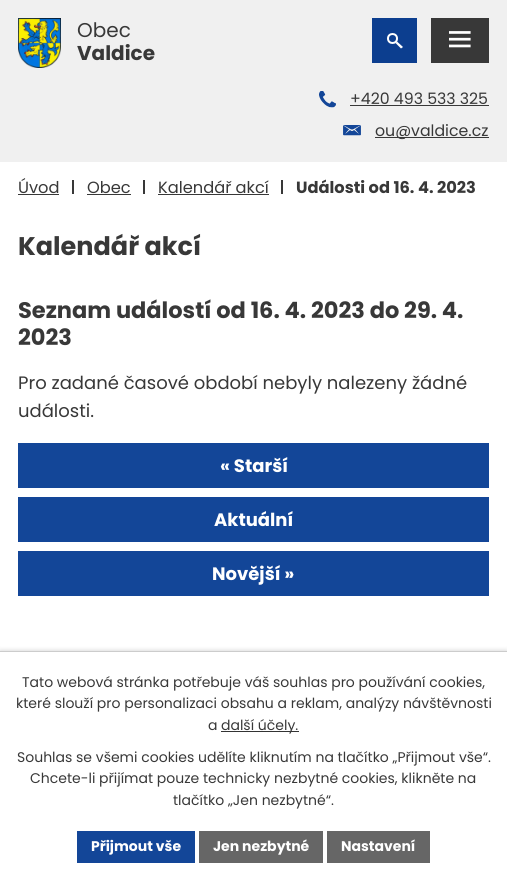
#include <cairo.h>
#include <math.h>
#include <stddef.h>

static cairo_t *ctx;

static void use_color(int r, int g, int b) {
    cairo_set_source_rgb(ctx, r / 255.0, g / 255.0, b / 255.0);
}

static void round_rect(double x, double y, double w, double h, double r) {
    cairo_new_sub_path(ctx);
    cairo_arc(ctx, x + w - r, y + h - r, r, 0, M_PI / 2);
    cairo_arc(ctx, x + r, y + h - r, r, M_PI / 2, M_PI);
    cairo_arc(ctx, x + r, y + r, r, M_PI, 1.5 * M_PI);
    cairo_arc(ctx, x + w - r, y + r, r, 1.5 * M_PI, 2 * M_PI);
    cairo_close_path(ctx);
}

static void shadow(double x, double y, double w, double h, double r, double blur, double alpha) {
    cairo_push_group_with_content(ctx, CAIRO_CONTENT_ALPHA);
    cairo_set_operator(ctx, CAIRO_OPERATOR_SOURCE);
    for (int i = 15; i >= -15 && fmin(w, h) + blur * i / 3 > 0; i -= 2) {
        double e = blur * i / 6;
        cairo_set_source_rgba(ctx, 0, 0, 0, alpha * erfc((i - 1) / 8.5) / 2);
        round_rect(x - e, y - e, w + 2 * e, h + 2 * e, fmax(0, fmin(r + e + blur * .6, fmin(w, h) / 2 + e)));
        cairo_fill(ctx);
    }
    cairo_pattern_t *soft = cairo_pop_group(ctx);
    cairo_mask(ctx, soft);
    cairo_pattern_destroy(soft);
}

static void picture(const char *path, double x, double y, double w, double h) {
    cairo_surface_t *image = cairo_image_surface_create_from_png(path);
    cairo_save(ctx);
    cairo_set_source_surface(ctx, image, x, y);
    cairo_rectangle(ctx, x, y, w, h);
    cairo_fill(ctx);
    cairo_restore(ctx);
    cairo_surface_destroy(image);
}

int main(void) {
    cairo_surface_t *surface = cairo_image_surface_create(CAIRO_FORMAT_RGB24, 507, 882);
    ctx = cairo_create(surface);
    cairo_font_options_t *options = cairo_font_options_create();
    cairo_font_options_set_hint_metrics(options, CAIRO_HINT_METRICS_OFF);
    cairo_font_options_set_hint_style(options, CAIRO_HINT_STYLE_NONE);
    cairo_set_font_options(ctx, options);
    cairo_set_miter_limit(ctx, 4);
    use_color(255, 255, 255);
    cairo_paint(ctx);
    use_color(240, 240, 240);
    cairo_rectangle(ctx, 0, 0, 507, 162);
    cairo_fill(ctx);
    use_color(56, 56, 56);
    cairo_rectangle(ctx, 431, 18, 58, 45);
    cairo_fill(ctx);
    picture("img1.png", 449, 31, 22, 17);
    picture("img2.png", 18, 18, 43, 50);
    cairo_select_font_face(ctx, "Poppins", CAIRO_FONT_SLANT_NORMAL, CAIRO_FONT_WEIGHT_NORMAL);
    cairo_set_font_size(ctx, 20);
    cairo_move_to(ctx, 77, 37);
    cairo_show_text(ctx, "Obec");
    cairo_select_font_face(ctx, "Poppins", CAIRO_FONT_SLANT_NORMAL, CAIRO_FONT_WEIGHT_BOLD);
    cairo_move_to(ctx, 77, 60);
    cairo_show_text(ctx, "Valdice");
    use_color(12, 62, 143);
    cairo_rectangle(ctx, 372, 18, 45, 45);
    cairo_fill(ctx);
    cairo_arc(ctx, 392.5, 38.5, 4.5, 0, 2 * M_PI);
    use_color(255, 255, 255);
    cairo_stroke(ctx);
    cairo_new_path(ctx);
    cairo_move_to(ctx, 397, 41.5);
    cairo_line_to(ctx, 403, 47);
    cairo_line_to(ctx, 401, 48.5);
    cairo_line_to(ctx, 395.5, 43);
    cairo_close_path(ctx);
    cairo_fill(ctx);
    picture("img3.png", 319, 91, 17, 17);
    cairo_select_font_face(ctx, "Poppins", CAIRO_FONT_SLANT_NORMAL, CAIRO_FONT_WEIGHT_NORMAL);
    cairo_set_font_size(ctx, 15.75);
    use_color(56, 56, 56);
    cairo_move_to(ctx, 350, 104);
    cairo_show_text(ctx, "+420 493 533 325");
    cairo_rectangle(ctx, 350, 105, 139, 1);
    cairo_fill(ctx);
    picture("img4.png", 343, 125, 18, 11);
    cairo_rectangle(ctx, 375, 137, 114, 1);
    cairo_fill(ctx);
    cairo_move_to(ctx, 375, 136);
    cairo_show_text(ctx, "ou@valdice.cz");
    cairo_set_font_size(ctx, 16.25);
    cairo_move_to(ctx, 18, 193);
    cairo_show_text(ctx, "Úvod");
    cairo_rectangle(ctx, 18, 194, 41, 1);
    cairo_fill(ctx);
    cairo_rectangle(ctx, 72, 180, 2, 14);
    cairo_fill(ctx);
    cairo_move_to(ctx, 87, 193);
    cairo_show_text(ctx, "Obec");
    cairo_rectangle(ctx, 87, 194, 44, 1);
    cairo_fill(ctx);
    cairo_rectangle(ctx, 143, 180, 2, 14);
    cairo_fill(ctx);
    cairo_move_to(ctx, 158, 193);
    cairo_show_text(ctx, "Kalendář akcí");
    cairo_rectangle(ctx, 158, 194, 111, 1);
    cairo_fill(ctx);
    cairo_rectangle(ctx, 281, 180, 2, 14);
    cairo_fill(ctx);
    cairo_select_font_face(ctx, "Poppins", CAIRO_FONT_SLANT_NORMAL, CAIRO_FONT_WEIGHT_BOLD);
    cairo_move_to(ctx, 296, 193);
    cairo_show_text(ctx, "Události od 16. 4. 2023");
    cairo_set_font_size(ctx, 25.5);
    cairo_move_to(ctx, 18, 255);
    cairo_show_text(ctx, "Kalendář akcí");
    cairo_set_font_size(ctx, 22.5);
    cairo_move_to(ctx, 18, 318);
    cairo_show_text(ctx, "Seznam událostí od 16. 4. 2023 do 29. 4.");
    cairo_move_to(ctx, 18, 345);
    cairo_show_text(ctx, "2023");
    cairo_select_font_face(ctx, "Poppins", CAIRO_FONT_SLANT_NORMAL, CAIRO_FONT_WEIGHT_NORMAL);
    cairo_set_font_size(ctx, 18);
    cairo_move_to(ctx, 18, 389);
    cairo_show_text(ctx, "Pro zadané časové období nebyly nalezeny žádné");
    cairo_move_to(ctx, 18, 417);
    cairo_show_text(ctx, "události.");
    use_color(19, 70, 152);
    cairo_rectangle(ctx, 18, 443, 471, 45);
    cairo_fill(ctx);
    cairo_select_font_face(ctx, "Poppins", CAIRO_FONT_SLANT_NORMAL, CAIRO_FONT_WEIGHT_BOLD);
    use_color(255, 255, 255);
    cairo_move_to(ctx, 220, 472);
    cairo_show_text(ctx, "« Starší");
    use_color(19, 70, 152);
    cairo_rectangle(ctx, 18, 497, 471, 45);
    cairo_fill(ctx);
    use_color(255, 255, 255);
    cairo_move_to(ctx, 214, 526);
    cairo_show_text(ctx, "Aktuální");
    use_color(19, 70, 152);
    cairo_rectangle(ctx, 18, 551, 471, 45);
    cairo_fill(ctx);
    use_color(255, 255, 255);
    cairo_move_to(ctx, 212, 580);
    cairo_show_text(ctx, "Novější »");
    use_color(0, 0, 0);
    shadow(0, 651, 507, 231, 0, 2.5, 0.2);
    use_color(255, 255, 255);
    cairo_rectangle(ctx, 0, 652, 507, 230);
    cairo_fill(ctx);
    use_color(204, 204, 204);
    cairo_rectangle(ctx, 0, 651, 507, 1);
    cairo_fill(ctx);
    cairo_select_font_face(ctx, "Poppins", CAIRO_FONT_SLANT_NORMAL, CAIRO_FONT_WEIGHT_NORMAL);
    cairo_set_font_size(ctx, 14);
    use_color(56, 56, 56);
    cairo_move_to(ctx, 22, 687);
    cairo_show_text(ctx, "Tato webová stránka potřebuje váš souhlas pro používání cookies,");
    cairo_move_to(ctx, 16, 708);
    cairo_show_text(ctx, "které slouží pro personalizaci obsahu a reklam, analýzy návštěvnosti");
    cairo_move_to(ctx, 208, 730);
    cairo_show_text(ctx, "a");
    use_color(51, 51, 51);
    cairo_rectangle(ctx, 221, 731, 78, 1);
    cairo_fill(ctx);
    use_color(56, 56, 56);
    cairo_move_to(ctx, 221, 730);
    cairo_show_text(ctx, "další účely.");
    cairo_move_to(ctx, 17, 762);
    cairo_show_text(ctx, "Souhlas se všemi cookies udělíte kliknutím na tlačítko „Přijmout vše“.");
    cairo_move_to(ctx, 30, 783);
    cairo_show_text(ctx, "Chcete-li přijímat pouze technicky nezbytné cookies, klikněte na");
    cairo_move_to(ctx, 173, 805);
    cairo_show_text(ctx, "tlačítko „Jen nezbytné“.");
    use_color(19, 70, 152);
    cairo_rectangle(ctx, 77, 831, 118, 32);
    cairo_fill(ctx);
    cairo_select_font_face(ctx, "Poppins", CAIRO_FONT_SLANT_NORMAL, CAIRO_FONT_WEIGHT_BOLD);
    use_color(255, 255, 255);
    cairo_move_to(ctx, 91, 851);
    cairo_show_text(ctx, "Přijmout vše");
    use_color(102, 102, 102);
    cairo_rectangle(ctx, 199, 831, 124, 32);
    cairo_fill(ctx);
    use_color(255, 255, 255);
    cairo_move_to(ctx, 213, 851);
    cairo_show_text(ctx, "Jen nezbytné");
    use_color(102, 102, 102);
    cairo_rectangle(ctx, 327, 831, 103, 32);
    cairo_fill(ctx);
    use_color(255, 255, 255);
    cairo_move_to(ctx, 341, 851);
    cairo_show_text(ctx, "Nastavení");
    cairo_surface_write_to_png(surface, "result.png");
    cairo_font_options_destroy(options);
    cairo_destroy(ctx);
    cairo_surface_destroy(surface);
    return 0;
}
